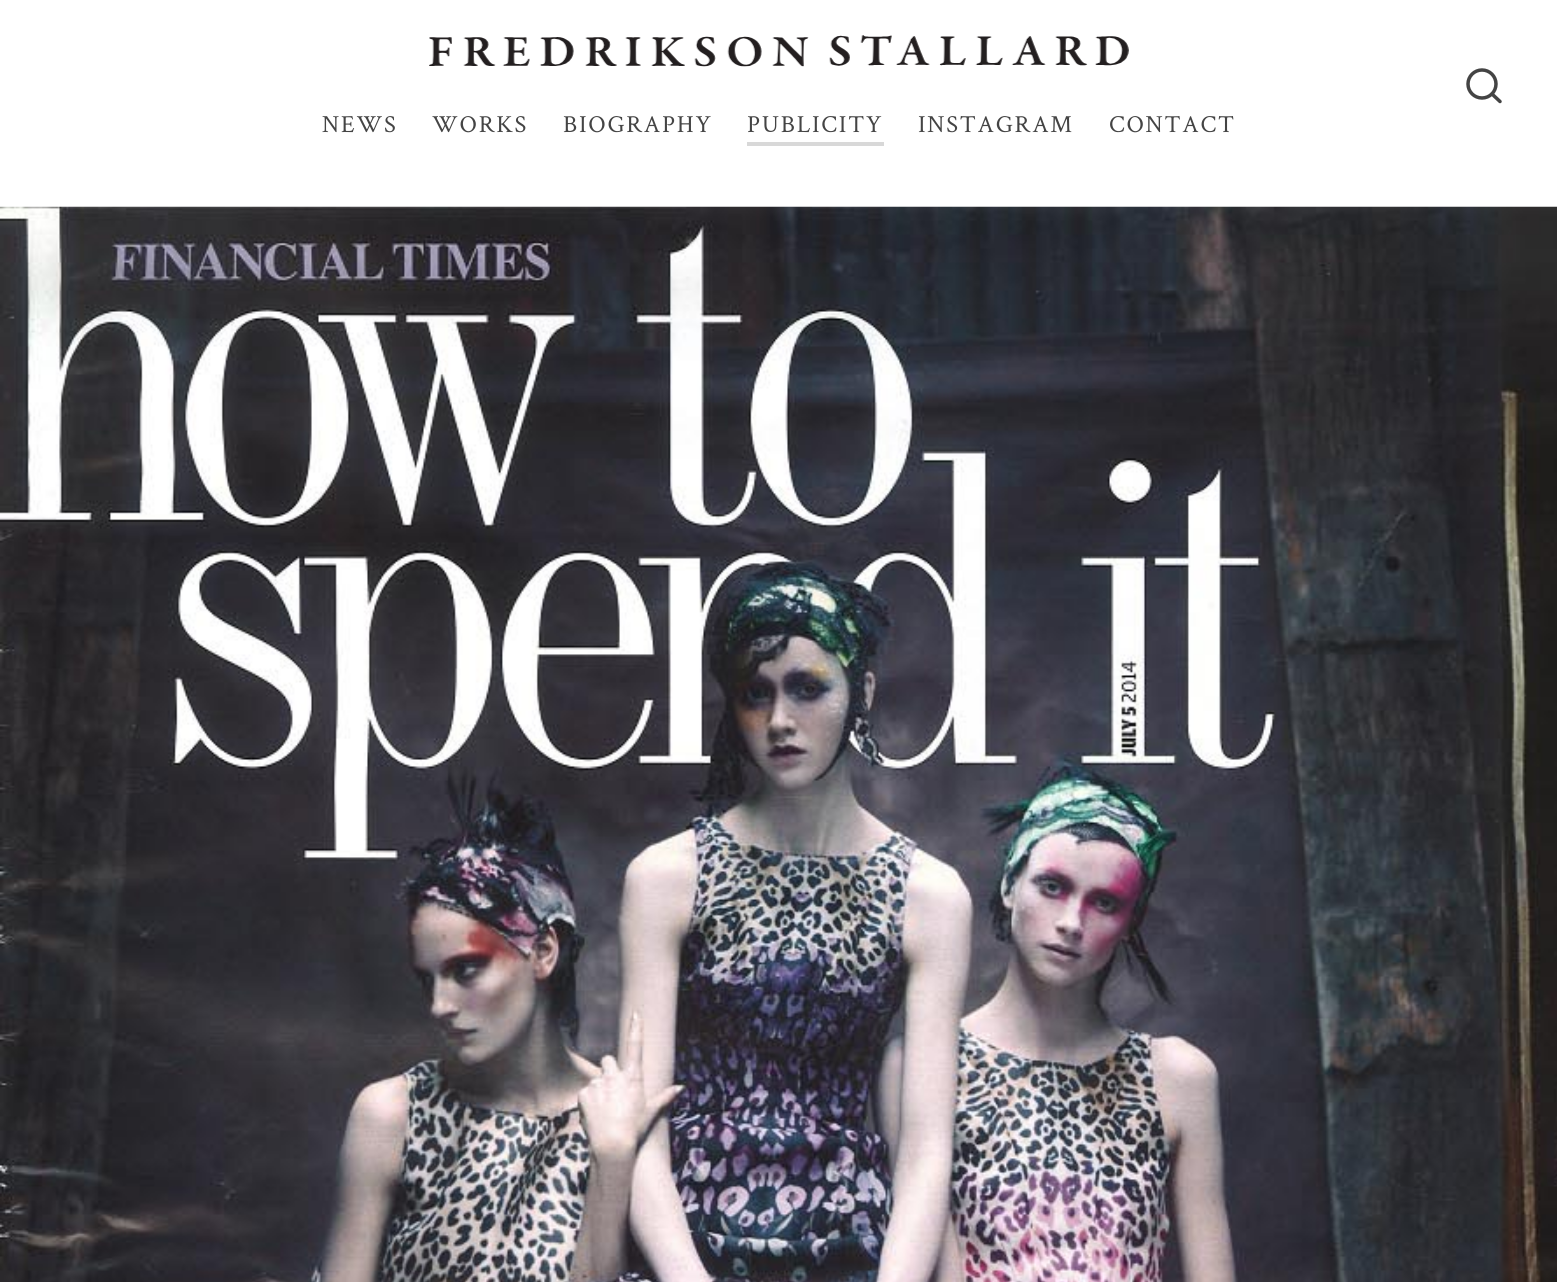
#include <cairo.h>
#include <math.h>
#include <stddef.h>

static cairo_t *ctx;

static void use_color(int r, int g, int b) {
    cairo_set_source_rgb(ctx, r / 255.0, g / 255.0, b / 255.0);
}

static void spaced_text(double x, double y, const char *s, double letter, double word) {
    cairo_move_to(ctx, x, y);
    while (*s) {
        char ch[5] = {0};
        int n = 0;
        do ch[n++] = *s++; while ((*s & 0xC0) == 0x80);
        cairo_show_text(ctx, ch);
        cairo_rel_move_to(ctx, letter + word * (*ch == ' '), 0);
    }
}

static void picture(const char *path, double x, double y, double w, double h) {
    cairo_surface_t *image = cairo_image_surface_create_from_png(path);
    cairo_save(ctx);
    cairo_set_source_surface(ctx, image, x, y);
    cairo_rectangle(ctx, x, y, w, h);
    cairo_fill(ctx);
    cairo_restore(ctx);
    cairo_surface_destroy(image);
}

int main(void) {
    cairo_surface_t *surface = cairo_image_surface_create(CAIRO_FORMAT_RGB24, 1557, 1282);
    ctx = cairo_create(surface);
    cairo_font_options_t *options = cairo_font_options_create();
    cairo_font_options_set_hint_metrics(options, CAIRO_HINT_METRICS_OFF);
    cairo_font_options_set_hint_style(options, CAIRO_HINT_STYLE_NONE);
    cairo_set_font_options(ctx, options);
    cairo_set_miter_limit(ctx, 4);
    use_color(255, 255, 255);
    cairo_paint(ctx);
    picture("img1.png", 429, 35, 700, 32);
    cairo_arc(ctx, 1482, 84, 14, 0, 2 * M_PI);
    use_color(68, 68, 68);
    cairo_set_line_width(ctx, 3.5);
    cairo_stroke(ctx);
    cairo_new_path(ctx);
    cairo_move_to(ctx, 1500, 101.5);
    cairo_line_to(ctx, 1492, 94);
    cairo_set_line_cap(ctx, CAIRO_LINE_CAP_ROUND);
    cairo_set_line_join(ctx, CAIRO_LINE_JOIN_ROUND);
    cairo_stroke(ctx);
    cairo_select_font_face(ctx, "Crimson Text", CAIRO_FONT_SLANT_NORMAL, CAIRO_FONT_WEIGHT_NORMAL);
    cairo_set_font_size(ctx, 24.5);
    spaced_text(322, 132, "NEWS", 1.75, 0);
    spaced_text(432, 132, "WORKS", 1.75, 0);
    spaced_text(563, 132, "BIOGRAPHY", 1.75, 0);
    spaced_text(747, 132, "PUBLICITY", 1.75, 0);
    use_color(216, 216, 216);
    cairo_rectangle(ctx, 747, 142, 137, 4);
    cairo_fill(ctx);
    use_color(68, 68, 68);
    spaced_text(918, 132, "INSTAGRAM", 1.75, 0);
    spaced_text(1109, 132, "CONTACT", 1.75, 0);
    picture("img2.png", 0, 206, 1557, 1076);
    cairo_surface_write_to_png(surface, "result.png");
    cairo_font_options_destroy(options);
    cairo_destroy(ctx);
    cairo_surface_destroy(surface);
    return 0;
}
